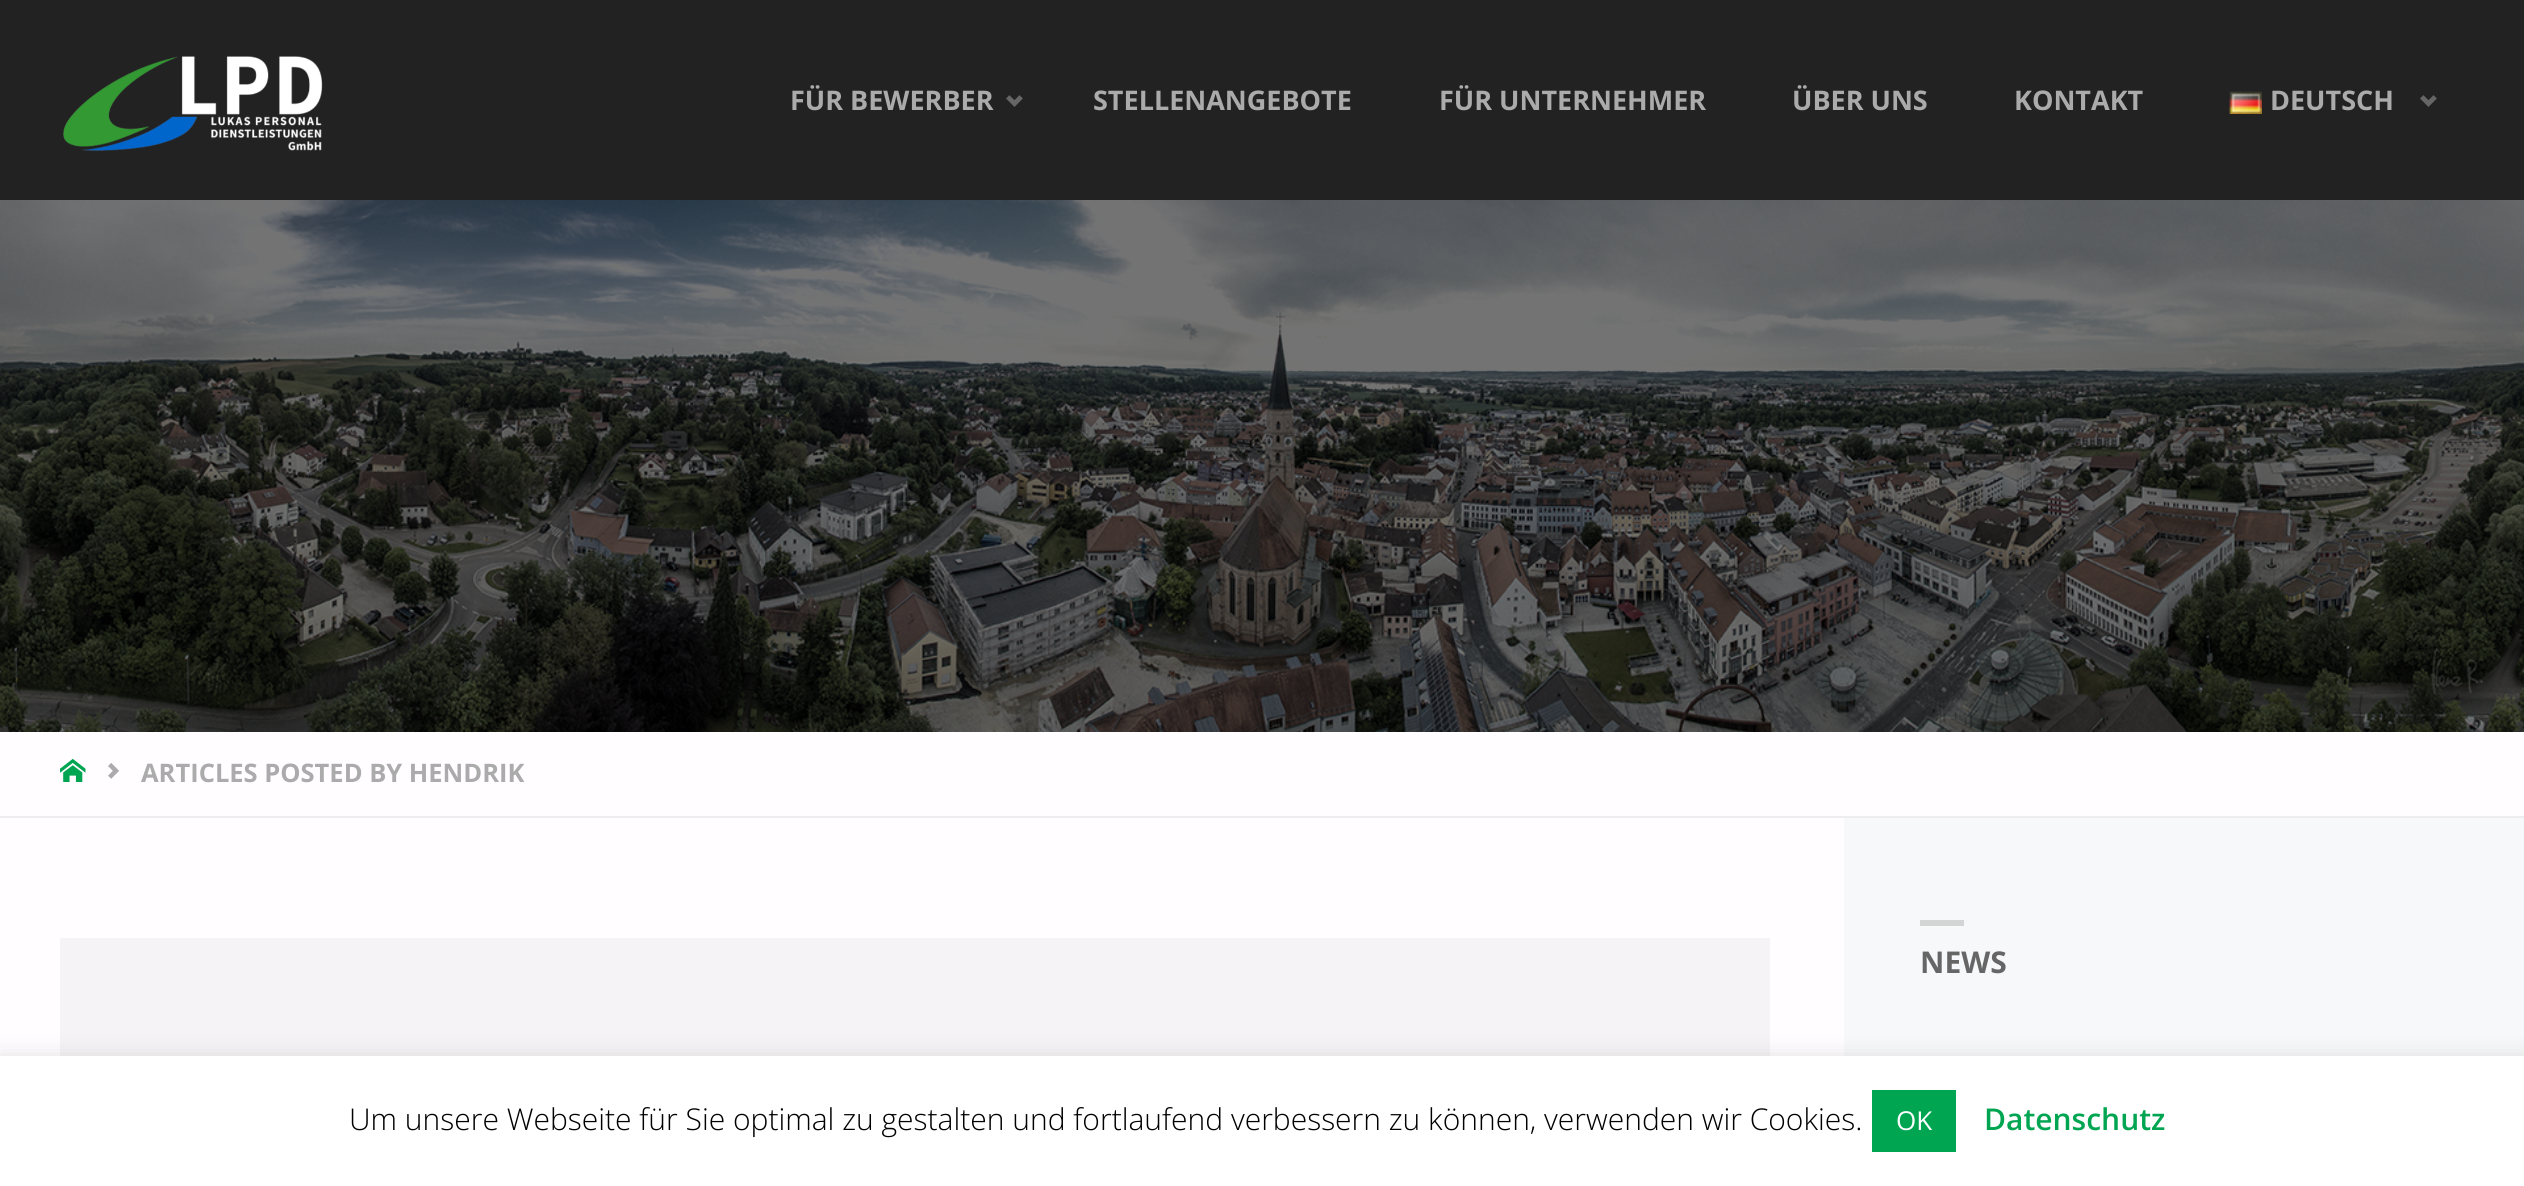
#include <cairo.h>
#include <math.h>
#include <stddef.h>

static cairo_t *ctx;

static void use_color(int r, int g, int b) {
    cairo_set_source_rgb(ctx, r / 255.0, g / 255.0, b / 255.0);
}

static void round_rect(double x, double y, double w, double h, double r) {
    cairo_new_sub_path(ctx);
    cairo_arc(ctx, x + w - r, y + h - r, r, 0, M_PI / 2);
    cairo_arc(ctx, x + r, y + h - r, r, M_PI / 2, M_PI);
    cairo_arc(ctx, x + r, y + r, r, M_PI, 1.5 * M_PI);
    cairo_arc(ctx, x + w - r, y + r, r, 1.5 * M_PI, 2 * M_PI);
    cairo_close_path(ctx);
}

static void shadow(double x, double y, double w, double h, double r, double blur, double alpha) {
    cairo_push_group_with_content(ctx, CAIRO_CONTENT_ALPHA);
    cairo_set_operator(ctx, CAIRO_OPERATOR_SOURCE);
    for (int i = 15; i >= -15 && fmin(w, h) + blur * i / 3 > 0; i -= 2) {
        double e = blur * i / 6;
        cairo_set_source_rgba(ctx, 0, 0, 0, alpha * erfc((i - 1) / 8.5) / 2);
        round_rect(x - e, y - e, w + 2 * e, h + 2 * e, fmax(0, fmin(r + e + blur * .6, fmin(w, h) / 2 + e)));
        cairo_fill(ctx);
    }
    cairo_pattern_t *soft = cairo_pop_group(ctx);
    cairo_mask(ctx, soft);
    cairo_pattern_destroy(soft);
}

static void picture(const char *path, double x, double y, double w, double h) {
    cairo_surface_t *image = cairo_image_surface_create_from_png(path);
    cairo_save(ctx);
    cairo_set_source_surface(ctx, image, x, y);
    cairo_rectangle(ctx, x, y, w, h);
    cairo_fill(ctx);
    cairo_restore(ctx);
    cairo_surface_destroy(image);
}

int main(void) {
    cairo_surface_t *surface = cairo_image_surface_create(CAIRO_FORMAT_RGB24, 2524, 1186);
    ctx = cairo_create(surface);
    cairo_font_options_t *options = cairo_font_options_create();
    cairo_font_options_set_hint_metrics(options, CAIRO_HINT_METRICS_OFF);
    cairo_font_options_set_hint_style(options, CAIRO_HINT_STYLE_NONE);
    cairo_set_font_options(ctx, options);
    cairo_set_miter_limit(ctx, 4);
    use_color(255, 253, 255);
    cairo_paint(ctx);
    use_color(34, 34, 34);
    cairo_rectangle(ctx, 0, 0, 2524, 200);
    cairo_fill(ctx);
    picture("img1.png", 63, 56, 260, 95);
    cairo_select_font_face(ctx, "Open Sans", CAIRO_FONT_SLANT_NORMAL, CAIRO_FONT_WEIGHT_BOLD);
    cairo_set_font_size(ctx, 27);
    use_color(171, 171, 171);
    cairo_move_to(ctx, 790, 110);
    cairo_show_text(ctx, "FÜR BEWERBER");
    picture("img2.png", 1006, 95, 17, 12);
    cairo_move_to(ctx, 1093, 110);
    cairo_show_text(ctx, "STELLENANGEBOTE");
    cairo_move_to(ctx, 1439, 110);
    cairo_show_text(ctx, "FÜR UNTERNEHMER");
    cairo_move_to(ctx, 1792, 110);
    cairo_show_text(ctx, "ÜBER UNS");
    cairo_move_to(ctx, 2014, 110);
    cairo_show_text(ctx, "KONTAKT");
    picture("img3.png", 2229, 91, 33, 23);
    cairo_move_to(ctx, 2270, 110);
    cairo_show_text(ctx, "DEUTSCH");
    picture("img2.png", 2420, 95, 17, 12);
    picture("img4.png", 0, 200, 2524, 532);
    use_color(238, 236, 238);
    cairo_rectangle(ctx, 0, 816, 2524, 2);
    cairo_fill(ctx);
    picture("img5.png", 60, 758, 26, 24);
    picture("img6.png", 108, 763, 11, 16);
    cairo_set_font_size(ctx, 25.5);
    use_color(171, 171, 171);
    cairo_move_to(ctx, 141, 782);
    cairo_show_text(ctx, "ARTICLES POSTED BY HENDRIK");
    use_color(245, 243, 245);
    cairo_rectangle(ctx, 60, 938, 1710, 118);
    cairo_fill(ctx);
    use_color(247, 248, 249);
    cairo_rectangle(ctx, 1844, 818, 680, 238);
    cairo_fill(ctx);
    use_color(211, 212, 212);
    cairo_rectangle(ctx, 1920, 920, 44, 6);
    cairo_fill(ctx);
    cairo_set_font_size(ctx, 30);
    use_color(102, 102, 102);
    cairo_move_to(ctx, 1920, 973);
    cairo_show_text(ctx, "NEWS");
    use_color(172, 171, 171);
    shadow(0, 1054, 2524, 130, 0, 10, 0.3);
    use_color(255, 255, 255);
    cairo_rectangle(ctx, 0, 1056, 2524, 130);
    cairo_fill(ctx);
    cairo_select_font_face(ctx, "Open Sans Light", CAIRO_FONT_SLANT_NORMAL, CAIRO_FONT_WEIGHT_NORMAL);
    use_color(0, 0, 0);
    cairo_move_to(ctx, 349, 1130);
    cairo_show_text(ctx, "Um unsere Webseite für Sie optimal zu gestalten und fortlaufend verbessern zu können, verwenden wir Cookies.");
    use_color(0, 165, 81);
    cairo_rectangle(ctx, 1872, 1090, 84, 62);
    cairo_fill(ctx);
    cairo_select_font_face(ctx, "Open Sans", CAIRO_FONT_SLANT_NORMAL, CAIRO_FONT_WEIGHT_NORMAL);
    cairo_set_font_size(ctx, 26);
    use_color(255, 255, 255);
    cairo_move_to(ctx, 1896, 1130);
    cairo_show_text(ctx, "OK");
    cairo_select_font_face(ctx, "Open Sans SemiBold", CAIRO_FONT_SLANT_NORMAL, CAIRO_FONT_WEIGHT_NORMAL);
    cairo_set_font_size(ctx, 30);
    use_color(0, 165, 81);
    cairo_move_to(ctx, 1984, 1130);
    cairo_show_text(ctx, "Datenschutz");
    cairo_surface_write_to_png(surface, "result.png");
    cairo_font_options_destroy(options);
    cairo_destroy(ctx);
    cairo_surface_destroy(surface);
    return 0;
}
